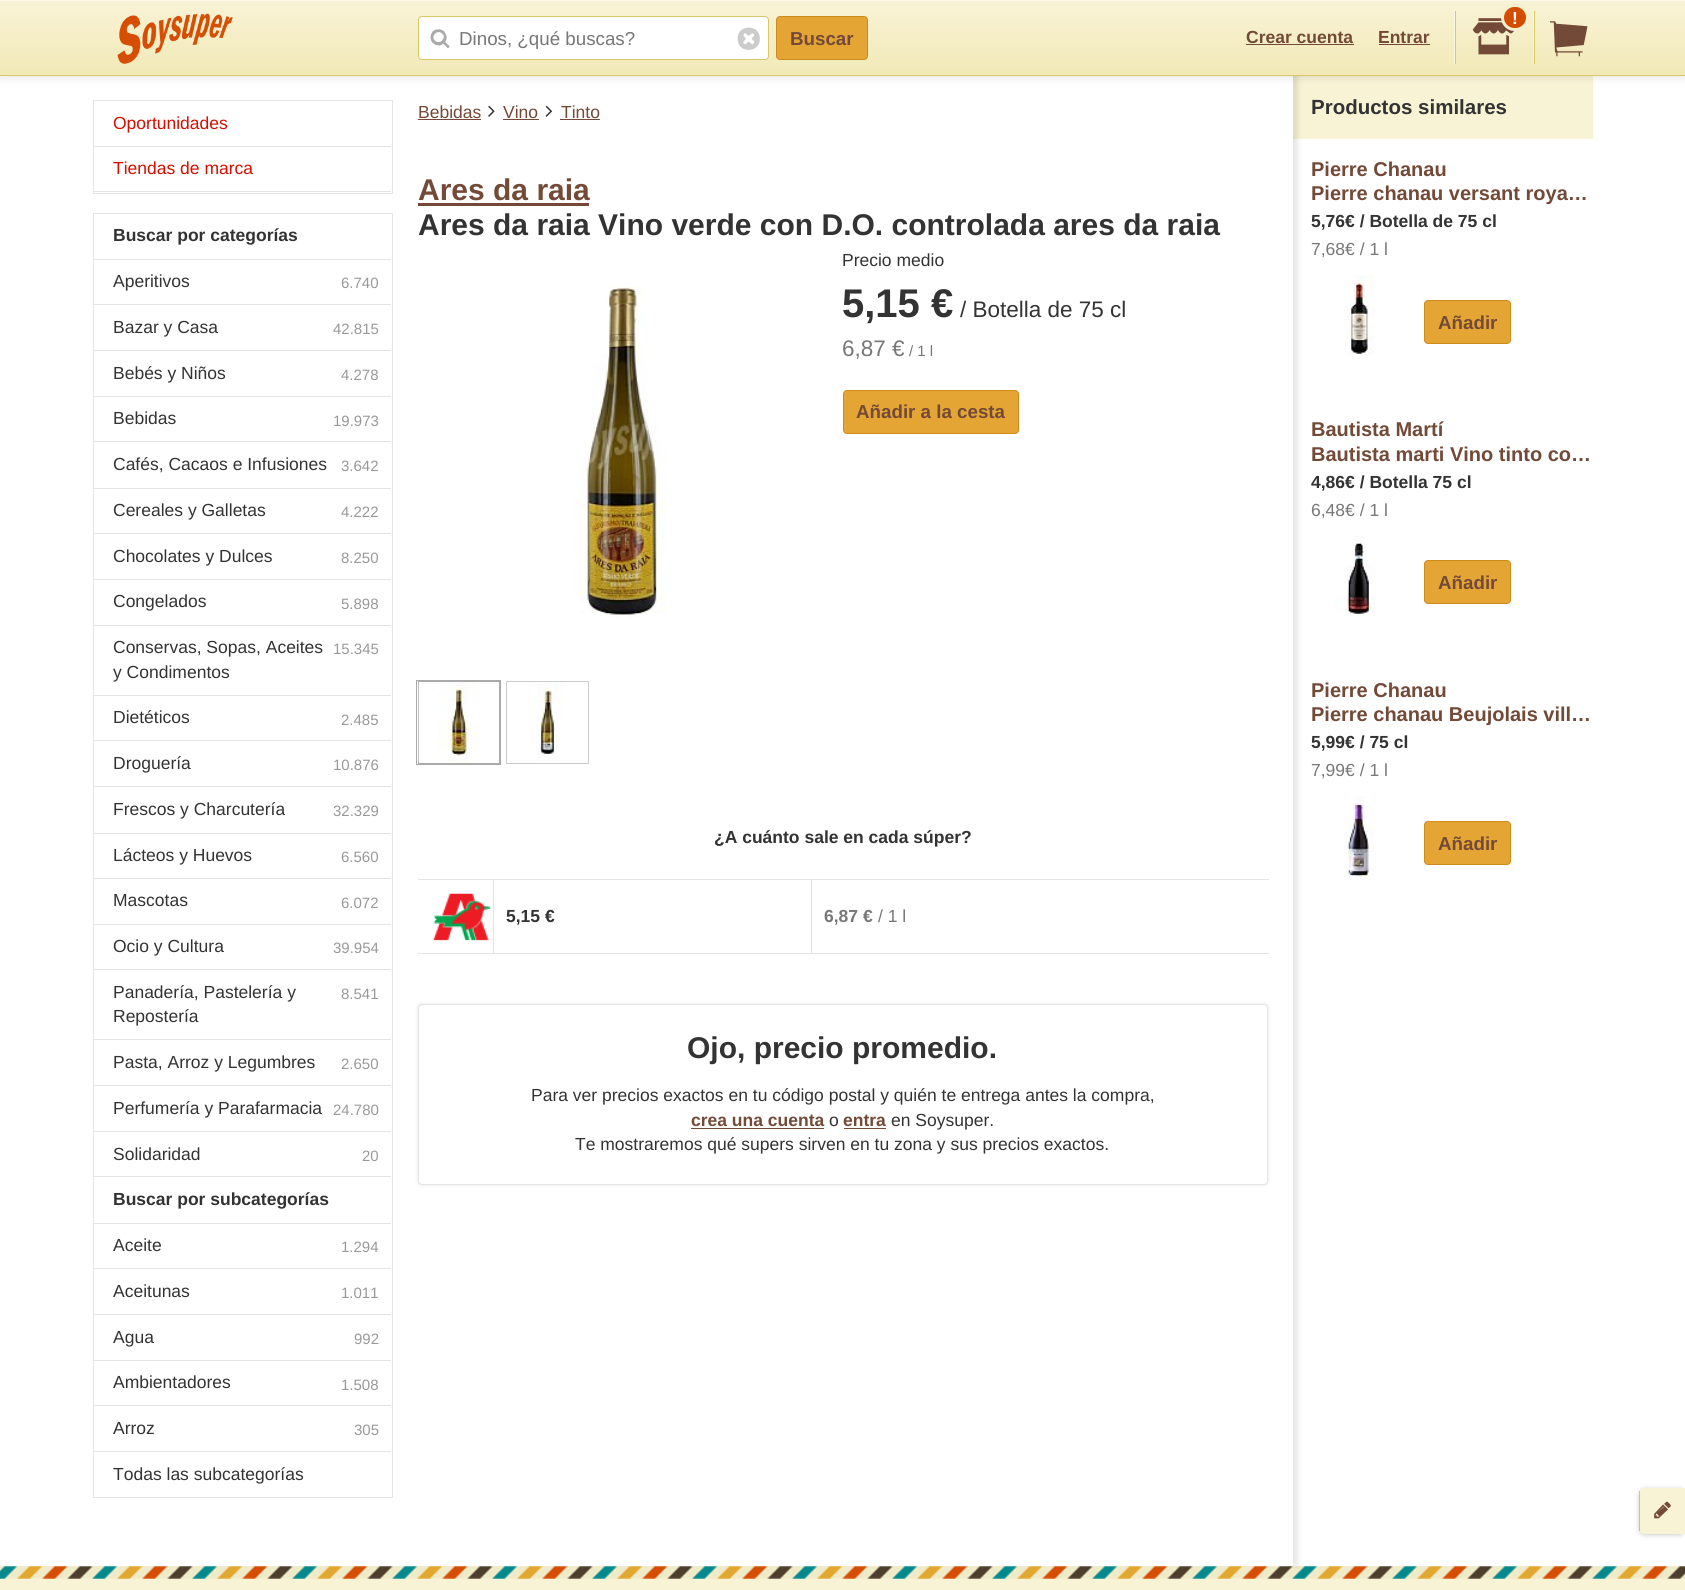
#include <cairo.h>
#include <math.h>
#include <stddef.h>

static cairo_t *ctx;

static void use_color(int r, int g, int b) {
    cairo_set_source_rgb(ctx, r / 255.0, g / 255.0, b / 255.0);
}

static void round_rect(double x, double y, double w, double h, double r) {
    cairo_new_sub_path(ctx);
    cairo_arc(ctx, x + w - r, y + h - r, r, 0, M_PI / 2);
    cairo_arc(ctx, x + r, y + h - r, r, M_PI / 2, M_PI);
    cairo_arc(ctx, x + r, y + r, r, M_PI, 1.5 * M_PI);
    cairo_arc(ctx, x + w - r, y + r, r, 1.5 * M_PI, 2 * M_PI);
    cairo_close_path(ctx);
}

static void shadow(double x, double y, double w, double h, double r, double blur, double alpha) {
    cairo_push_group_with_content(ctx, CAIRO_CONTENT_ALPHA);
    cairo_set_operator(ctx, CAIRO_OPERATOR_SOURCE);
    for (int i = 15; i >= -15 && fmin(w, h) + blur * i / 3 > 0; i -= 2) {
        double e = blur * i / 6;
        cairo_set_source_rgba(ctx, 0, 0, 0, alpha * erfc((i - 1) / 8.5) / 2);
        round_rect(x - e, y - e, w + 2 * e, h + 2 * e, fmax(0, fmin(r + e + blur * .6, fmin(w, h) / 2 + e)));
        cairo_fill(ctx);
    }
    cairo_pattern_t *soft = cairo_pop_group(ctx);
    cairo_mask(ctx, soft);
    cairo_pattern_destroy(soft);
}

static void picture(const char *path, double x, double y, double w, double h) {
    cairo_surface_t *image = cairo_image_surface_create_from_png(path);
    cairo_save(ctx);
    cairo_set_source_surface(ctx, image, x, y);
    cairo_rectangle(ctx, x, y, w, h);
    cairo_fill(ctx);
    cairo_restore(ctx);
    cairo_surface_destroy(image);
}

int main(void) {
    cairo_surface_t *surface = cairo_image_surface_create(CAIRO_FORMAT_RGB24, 1685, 1590);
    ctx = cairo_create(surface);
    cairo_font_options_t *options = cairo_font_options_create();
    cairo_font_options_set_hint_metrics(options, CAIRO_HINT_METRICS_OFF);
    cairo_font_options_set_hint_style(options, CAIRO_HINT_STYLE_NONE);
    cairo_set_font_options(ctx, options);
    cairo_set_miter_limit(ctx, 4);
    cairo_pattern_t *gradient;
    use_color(255, 255, 255);
    cairo_paint(ctx);
    use_color(248, 243, 213);
    cairo_rectangle(ctx, 1293, 76, 300, 63);
    cairo_fill(ctx);
    cairo_new_path(ctx);
    cairo_move_to(ctx, 1292.5, 75.5);
    cairo_line_to(ctx, 1592.5, 75.5);
    use_color(204, 204, 204);
    cairo_set_line_width(ctx, 1.2);
    cairo_set_dash(ctx, (double[]){1.25, 1.25}, 2, 0);
    cairo_stroke(ctx);
    use_color(0, 0, 0);
    shadow(0, 1, 1685, 77, 0, 4.5, 0.1);
    use_color(248, 243, 213);
    cairo_rectangle(ctx, 0, 1566, 1685, 24);
    cairo_fill(ctx);
    picture("img15.png", 0, 1566, 1685, 13);
    cairo_save(ctx);
    cairo_set_fill_rule(ctx, CAIRO_FILL_RULE_EVEN_ODD);
    cairo_new_path(ctx);
    cairo_move_to(ctx, 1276, 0);
    cairo_line_to(ctx, 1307, 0);
    cairo_line_to(ctx, 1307, 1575);
    cairo_line_to(ctx, 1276, 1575);
    cairo_close_path(ctx);
    cairo_move_to(ctx, 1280, 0);
    cairo_line_to(ctx, 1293, 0);
    cairo_line_to(ctx, 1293, 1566);
    cairo_line_to(ctx, 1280, 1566);
    cairo_close_path(ctx);
    cairo_clip(ctx);
    use_color(0, 0, 0);
    shadow(1285, 0, 13, 1566, 0, 2.5, 0.1);
    cairo_restore(ctx);
    gradient = cairo_pattern_create_linear(843, 0, 843, 75);
    cairo_pattern_add_color_stop_rgba(gradient, 0, 0.976, 0.953, 0.843, 1);
    cairo_pattern_add_color_stop_rgba(gradient, 1, 0.945, 0.914, 0.714, 1);
    cairo_set_source(ctx, gradient);
    cairo_pattern_destroy(gradient);
    cairo_rectangle(ctx, 0, 1, 1685, 74);
    cairo_fill(ctx);
    use_color(251, 248, 231);
    cairo_rectangle(ctx, 0, 0, 1685, 1);
    cairo_fill(ctx);
    use_color(217, 199, 104);
    cairo_rectangle(ctx, 0, 75, 1685, 1);
    cairo_fill(ctx);
    picture("img1.png", 117, 13, 116, 51);
    use_color(255, 255, 255);
    round_rect(418.5, 16.5, 350, 43, 3.5);
    cairo_fill_preserve(ctx);
    use_color(217, 199, 104);
    cairo_set_line_width(ctx, 1);
    cairo_set_dash(ctx, NULL, 0, 0);
    cairo_stroke(ctx);
    picture("img2.png", 430, 29, 20, 20);
    cairo_select_font_face(ctx, "Liberation Sans", CAIRO_FONT_SLANT_NORMAL, CAIRO_FONT_WEIGHT_NORMAL);
    cairo_set_font_size(ctx, 18.75);
    use_color(119, 119, 119);
    cairo_move_to(ctx, 459, 45);
    cairo_show_text(ctx, "Dinos, ¿qué buscas?");
    picture("img3.png", 737, 27, 23, 23);
    use_color(229, 165, 53);
    round_rect(776.5, 16.5, 91, 43, 3.5);
    cairo_fill_preserve(ctx);
    use_color(205, 140, 26);
    cairo_stroke(ctx);
    cairo_select_font_face(ctx, "Liberation Sans", CAIRO_FONT_SLANT_NORMAL, CAIRO_FONT_WEIGHT_BOLD);
    use_color(115, 73, 55);
    cairo_move_to(ctx, 790, 45);
    cairo_show_text(ctx, "Buscar");
    cairo_set_font_size(ctx, 17.5);
    cairo_move_to(ctx, 1246, 43);
    cairo_show_text(ctx, "Crear cuenta");
    cairo_rectangle(ctx, 1246, 44, 108, 1);
    cairo_fill(ctx);
    cairo_move_to(ctx, 1378, 43);
    cairo_show_text(ctx, "Entrar");
    cairo_rectangle(ctx, 1379, 44, 51, 1);
    cairo_fill(ctx);
    cairo_set_source_rgba(ctx, 1, 1, 1, 0.5);
    cairo_new_path(ctx);
    cairo_move_to(ctx, 1454, 11);
    cairo_line_to(ctx, 1454, 64);
    cairo_line_to(ctx, 1533, 64);
    cairo_line_to(ctx, 1455, 64);
    cairo_line_to(ctx, 1455, 11);
    cairo_line_to(ctx, 1533, 11);
    cairo_close_path(ctx);
    cairo_fill(ctx);
    use_color(217, 199, 104);
    cairo_rectangle(ctx, 1455, 11, 1, 53);
    cairo_fill(ctx);
    picture("img4.png", 1472, 18, 43, 37);
    use_color(212, 76, 0);
    round_rect(1502.5, 5.5, 25, 24, 12);
    cairo_fill_preserve(ctx);
    use_color(246, 240, 205);
    cairo_set_line_width(ctx, 3);
    cairo_stroke(ctx);
    use_color(255, 255, 255);
    cairo_move_to(ctx, 1512, 24);
    cairo_show_text(ctx, "!");
    cairo_set_source_rgba(ctx, 1, 1, 1, 0.5);
    cairo_new_path(ctx);
    cairo_move_to(ctx, 1533, 11);
    cairo_line_to(ctx, 1533, 64);
    cairo_line_to(ctx, 1591, 64);
    cairo_line_to(ctx, 1534, 64);
    cairo_line_to(ctx, 1534, 11);
    cairo_line_to(ctx, 1591, 11);
    cairo_close_path(ctx);
    cairo_fill(ctx);
    use_color(217, 199, 104);
    cairo_rectangle(ctx, 1534, 11, 1, 53);
    cairo_fill(ctx);
    picture("img5.png", 1550, 21, 38, 36);
    cairo_rectangle(ctx, 93.5, 100.5, 299, 93);
    use_color(228, 228, 228);
    cairo_set_line_width(ctx, 1);
    cairo_stroke(ctx);
    cairo_rectangle(ctx, 94, 146, 297, 1);
    cairo_fill(ctx);
    cairo_select_font_face(ctx, "Liberation Sans", CAIRO_FONT_SLANT_NORMAL, CAIRO_FONT_WEIGHT_NORMAL);
    use_color(212, 14, 0);
    cairo_move_to(ctx, 113, 129);
    cairo_show_text(ctx, "Oportunidades");
    use_color(228, 228, 228);
    cairo_rectangle(ctx, 94, 191, 297, 1);
    cairo_fill(ctx);
    use_color(212, 14, 0);
    cairo_move_to(ctx, 113, 174);
    cairo_show_text(ctx, "Tiendas de marca");
    cairo_rectangle(ctx, 93.5, 213.5, 299, 1284);
    use_color(228, 228, 228);
    cairo_stroke(ctx);
    cairo_rectangle(ctx, 94, 259, 297, 1);
    cairo_fill(ctx);
    cairo_select_font_face(ctx, "Liberation Sans", CAIRO_FONT_SLANT_NORMAL, CAIRO_FONT_WEIGHT_BOLD);
    use_color(51, 51, 51);
    cairo_move_to(ctx, 113, 241);
    cairo_show_text(ctx, "Buscar por categorías");
    cairo_select_font_face(ctx, "Liberation Sans", CAIRO_FONT_SLANT_NORMAL, CAIRO_FONT_WEIGHT_NORMAL);
    cairo_move_to(ctx, 113, 287);
    cairo_show_text(ctx, "Aperitivos");
    cairo_set_font_size(ctx, 15);
    use_color(153, 153, 153);
    cairo_move_to(ctx, 341, 288);
    cairo_show_text(ctx, "6.740");
    use_color(228, 228, 228);
    cairo_rectangle(ctx, 94, 304, 297, 1);
    cairo_fill(ctx);
    cairo_set_font_size(ctx, 17.5);
    use_color(51, 51, 51);
    cairo_move_to(ctx, 113, 333);
    cairo_show_text(ctx, "Bazar y Casa");
    cairo_set_font_size(ctx, 15);
    use_color(153, 153, 153);
    cairo_move_to(ctx, 333, 334);
    cairo_show_text(ctx, "42.815");
    use_color(228, 228, 228);
    cairo_rectangle(ctx, 94, 350, 297, 1);
    cairo_fill(ctx);
    cairo_set_font_size(ctx, 17.5);
    use_color(51, 51, 51);
    cairo_move_to(ctx, 113, 379);
    cairo_show_text(ctx, "Bebés y Niños");
    cairo_set_font_size(ctx, 15);
    use_color(153, 153, 153);
    cairo_move_to(ctx, 341, 380);
    cairo_show_text(ctx, "4.278");
    use_color(228, 228, 228);
    cairo_rectangle(ctx, 94, 396, 297, 1);
    cairo_fill(ctx);
    cairo_set_font_size(ctx, 17.5);
    use_color(51, 51, 51);
    cairo_move_to(ctx, 113, 424);
    cairo_show_text(ctx, "Bebidas");
    cairo_set_font_size(ctx, 15);
    use_color(153, 153, 153);
    cairo_move_to(ctx, 333, 426);
    cairo_show_text(ctx, "19.973");
    use_color(228, 228, 228);
    cairo_rectangle(ctx, 94, 441, 297, 1);
    cairo_fill(ctx);
    cairo_set_font_size(ctx, 17.5);
    use_color(51, 51, 51);
    cairo_move_to(ctx, 113, 470);
    cairo_show_text(ctx, "Cafés, Cacaos e Infusiones");
    cairo_set_font_size(ctx, 15);
    use_color(153, 153, 153);
    cairo_move_to(ctx, 341, 471);
    cairo_show_text(ctx, "3.642");
    use_color(228, 228, 228);
    cairo_rectangle(ctx, 94, 488, 297, 1);
    cairo_fill(ctx);
    cairo_set_font_size(ctx, 17.5);
    use_color(51, 51, 51);
    cairo_move_to(ctx, 113, 516);
    cairo_show_text(ctx, "Cereales y Galletas");
    cairo_set_font_size(ctx, 15);
    use_color(153, 153, 153);
    cairo_move_to(ctx, 341, 517);
    cairo_show_text(ctx, "4.222");
    use_color(228, 228, 228);
    cairo_rectangle(ctx, 94, 533, 297, 1);
    cairo_fill(ctx);
    cairo_set_font_size(ctx, 17.5);
    use_color(51, 51, 51);
    cairo_move_to(ctx, 113, 562);
    cairo_show_text(ctx, "Chocolates y Dulces");
    cairo_set_font_size(ctx, 15);
    use_color(153, 153, 153);
    cairo_move_to(ctx, 341, 563);
    cairo_show_text(ctx, "8.250");
    use_color(228, 228, 228);
    cairo_rectangle(ctx, 94, 579, 297, 1);
    cairo_fill(ctx);
    cairo_set_font_size(ctx, 17.5);
    use_color(51, 51, 51);
    cairo_move_to(ctx, 113, 607);
    cairo_show_text(ctx, "Congelados");
    cairo_set_font_size(ctx, 15);
    use_color(153, 153, 153);
    cairo_move_to(ctx, 341, 609);
    cairo_show_text(ctx, "5.898");
    use_color(228, 228, 228);
    cairo_rectangle(ctx, 94, 625, 297, 1);
    cairo_fill(ctx);
    cairo_set_font_size(ctx, 17.5);
    use_color(51, 51, 51);
    cairo_move_to(ctx, 113, 653);
    cairo_show_text(ctx, "Conservas, Sopas, Aceites");
    cairo_set_font_size(ctx, 15);
    use_color(153, 153, 153);
    cairo_move_to(ctx, 333, 654);
    cairo_show_text(ctx, "15.345");
    cairo_set_font_size(ctx, 17.5);
    use_color(51, 51, 51);
    cairo_move_to(ctx, 113, 678);
    cairo_show_text(ctx, "y Condimentos");
    use_color(228, 228, 228);
    cairo_rectangle(ctx, 94, 695, 297, 1);
    cairo_fill(ctx);
    use_color(51, 51, 51);
    cairo_move_to(ctx, 113, 723);
    cairo_show_text(ctx, "Dietéticos");
    cairo_set_font_size(ctx, 15);
    use_color(153, 153, 153);
    cairo_move_to(ctx, 341, 725);
    cairo_show_text(ctx, "2.485");
    use_color(228, 228, 228);
    cairo_rectangle(ctx, 94, 740, 297, 1);
    cairo_fill(ctx);
    cairo_set_font_size(ctx, 17.5);
    use_color(51, 51, 51);
    cairo_move_to(ctx, 113, 769);
    cairo_show_text(ctx, "Droguería");
    cairo_set_font_size(ctx, 15);
    use_color(153, 153, 153);
    cairo_move_to(ctx, 333, 770);
    cairo_show_text(ctx, "10.876");
    use_color(228, 228, 228);
    cairo_rectangle(ctx, 94, 786, 297, 1);
    cairo_fill(ctx);
    cairo_set_font_size(ctx, 17.5);
    use_color(51, 51, 51);
    cairo_move_to(ctx, 113, 815);
    cairo_show_text(ctx, "Frescos y Charcutería");
    cairo_set_font_size(ctx, 15);
    use_color(153, 153, 153);
    cairo_move_to(ctx, 333, 816);
    cairo_show_text(ctx, "32.329");
    use_color(228, 228, 228);
    cairo_rectangle(ctx, 94, 833, 297, 1);
    cairo_fill(ctx);
    cairo_set_font_size(ctx, 17.5);
    use_color(51, 51, 51);
    cairo_move_to(ctx, 113, 861);
    cairo_show_text(ctx, "Lácteos y Huevos");
    cairo_set_font_size(ctx, 15);
    use_color(153, 153, 153);
    cairo_move_to(ctx, 341, 862);
    cairo_show_text(ctx, "6.560");
    use_color(228, 228, 228);
    cairo_rectangle(ctx, 94, 878, 297, 1);
    cairo_fill(ctx);
    cairo_set_font_size(ctx, 17.5);
    use_color(51, 51, 51);
    cairo_move_to(ctx, 113, 906);
    cairo_show_text(ctx, "Mascotas");
    cairo_set_font_size(ctx, 15);
    use_color(153, 153, 153);
    cairo_move_to(ctx, 341, 908);
    cairo_show_text(ctx, "6.072");
    use_color(228, 228, 228);
    cairo_rectangle(ctx, 94, 924, 297, 1);
    cairo_fill(ctx);
    cairo_set_font_size(ctx, 17.5);
    use_color(51, 51, 51);
    cairo_move_to(ctx, 113, 952);
    cairo_show_text(ctx, "Ocio y Cultura");
    cairo_set_font_size(ctx, 15);
    use_color(153, 153, 153);
    cairo_move_to(ctx, 333, 953);
    cairo_show_text(ctx, "39.954");
    use_color(228, 228, 228);
    cairo_rectangle(ctx, 94, 969, 297, 1);
    cairo_fill(ctx);
    cairo_set_font_size(ctx, 17.5);
    use_color(51, 51, 51);
    cairo_move_to(ctx, 113, 998);
    cairo_show_text(ctx, "Panadería, Pastelería y");
    cairo_set_font_size(ctx, 15);
    use_color(153, 153, 153);
    cairo_move_to(ctx, 341, 999);
    cairo_show_text(ctx, "8.541");
    cairo_set_font_size(ctx, 17.5);
    use_color(51, 51, 51);
    cairo_move_to(ctx, 113, 1022);
    cairo_show_text(ctx, "Repostería");
    use_color(228, 228, 228);
    cairo_rectangle(ctx, 94, 1039, 297, 1);
    cairo_fill(ctx);
    use_color(51, 51, 51);
    cairo_move_to(ctx, 113, 1068);
    cairo_show_text(ctx, "Pasta, Arroz y Legumbres");
    cairo_set_font_size(ctx, 15);
    use_color(153, 153, 153);
    cairo_move_to(ctx, 341, 1069);
    cairo_show_text(ctx, "2.650");
    use_color(228, 228, 228);
    cairo_rectangle(ctx, 94, 1085, 297, 1);
    cairo_fill(ctx);
    cairo_set_font_size(ctx, 17.5);
    use_color(51, 51, 51);
    cairo_move_to(ctx, 113, 1114);
    cairo_show_text(ctx, "Perfumería y Parafarmacia");
    cairo_set_font_size(ctx, 15);
    use_color(153, 153, 153);
    cairo_move_to(ctx, 333, 1115);
    cairo_show_text(ctx, "24.780");
    use_color(228, 228, 228);
    cairo_rectangle(ctx, 94, 1131, 297, 1);
    cairo_fill(ctx);
    cairo_set_font_size(ctx, 17.5);
    use_color(51, 51, 51);
    cairo_move_to(ctx, 113, 1160);
    cairo_show_text(ctx, "Solidaridad");
    cairo_set_font_size(ctx, 15);
    use_color(153, 153, 153);
    cairo_move_to(ctx, 362, 1161);
    cairo_show_text(ctx, "20");
    use_color(228, 228, 228);
    cairo_rectangle(ctx, 94, 1176, 297, 1);
    cairo_fill(ctx);
    cairo_rectangle(ctx, 94, 1223, 297, 1);
    cairo_fill(ctx);
    cairo_select_font_face(ctx, "Liberation Sans", CAIRO_FONT_SLANT_NORMAL, CAIRO_FONT_WEIGHT_BOLD);
    cairo_set_font_size(ctx, 17.5);
    use_color(51, 51, 51);
    cairo_move_to(ctx, 113, 1205);
    cairo_show_text(ctx, "Buscar por subcategorías");
    cairo_select_font_face(ctx, "Liberation Sans", CAIRO_FONT_SLANT_NORMAL, CAIRO_FONT_WEIGHT_NORMAL);
    cairo_move_to(ctx, 113, 1251);
    cairo_show_text(ctx, "Aceite");
    cairo_set_font_size(ctx, 15);
    use_color(153, 153, 153);
    cairo_move_to(ctx, 341, 1252);
    cairo_show_text(ctx, "1.294");
    use_color(228, 228, 228);
    cairo_rectangle(ctx, 94, 1268, 297, 1);
    cairo_fill(ctx);
    cairo_set_font_size(ctx, 17.5);
    use_color(51, 51, 51);
    cairo_move_to(ctx, 113, 1297);
    cairo_show_text(ctx, "Aceitunas");
    cairo_set_font_size(ctx, 15);
    use_color(153, 153, 153);
    cairo_move_to(ctx, 341, 1298);
    cairo_show_text(ctx, "1.011");
    use_color(228, 228, 228);
    cairo_rectangle(ctx, 94, 1314, 297, 1);
    cairo_fill(ctx);
    cairo_set_font_size(ctx, 17.5);
    use_color(51, 51, 51);
    cairo_move_to(ctx, 113, 1343);
    cairo_show_text(ctx, "Agua");
    cairo_set_font_size(ctx, 15);
    use_color(153, 153, 153);
    cairo_move_to(ctx, 354, 1344);
    cairo_show_text(ctx, "992");
    use_color(228, 228, 228);
    cairo_rectangle(ctx, 94, 1360, 297, 1);
    cairo_fill(ctx);
    cairo_set_font_size(ctx, 17.5);
    use_color(51, 51, 51);
    cairo_move_to(ctx, 113, 1388);
    cairo_show_text(ctx, "Ambientadores");
    cairo_set_font_size(ctx, 15);
    use_color(153, 153, 153);
    cairo_move_to(ctx, 341, 1390);
    cairo_show_text(ctx, "1.508");
    use_color(228, 228, 228);
    cairo_rectangle(ctx, 94, 1405, 297, 1);
    cairo_fill(ctx);
    cairo_set_font_size(ctx, 17.5);
    use_color(51, 51, 51);
    cairo_move_to(ctx, 113, 1434);
    cairo_show_text(ctx, "Arroz");
    cairo_set_font_size(ctx, 15);
    use_color(153, 153, 153);
    cairo_move_to(ctx, 354, 1435);
    cairo_show_text(ctx, "305");
    use_color(228, 228, 228);
    cairo_rectangle(ctx, 94, 1451, 297, 1);
    cairo_fill(ctx);
    cairo_set_font_size(ctx, 17.5);
    use_color(51, 51, 51);
    cairo_move_to(ctx, 113, 1480);
    cairo_show_text(ctx, "Todas las subcategorías");
    use_color(115, 73, 55);
    cairo_move_to(ctx, 418, 118);
    cairo_show_text(ctx, "Bebidas");
    cairo_rectangle(ctx, 418, 119, 63, 1);
    cairo_fill(ctx);
    picture("img6.png", 488, 105, 7, 12);
    cairo_move_to(ctx, 503, 118);
    cairo_show_text(ctx, "Vino");
    cairo_rectangle(ctx, 503, 119, 36, 1);
    cairo_fill(ctx);
    picture("img7.png", 545, 105, 8, 12);
    cairo_move_to(ctx, 561, 118);
    cairo_show_text(ctx, "Tinto");
    cairo_rectangle(ctx, 560, 119, 40, 1);
    cairo_fill(ctx);
    cairo_select_font_face(ctx, "Liberation Sans", CAIRO_FONT_SLANT_NORMAL, CAIRO_FONT_WEIGHT_BOLD);
    cairo_set_font_size(ctx, 30);
    cairo_move_to(ctx, 418, 200);
    cairo_show_text(ctx, "Ares da raia");
    cairo_rectangle(ctx, 418, 203, 171, 3);
    cairo_fill(ctx);
    use_color(51, 51, 51);
    cairo_move_to(ctx, 418, 235);
    cairo_show_text(ctx, "Ares da raia Vino verde con D.O. controlada ares da raia");
    picture("img8.png", 573, 286, 94, 333);
    cairo_select_font_face(ctx, "Liberation Sans", CAIRO_FONT_SLANT_NORMAL, CAIRO_FONT_WEIGHT_NORMAL);
    cairo_set_font_size(ctx, 17.5);
    cairo_move_to(ctx, 842, 266);
    cairo_show_text(ctx, "Precio medio");
    cairo_select_font_face(ctx, "Liberation Sans", CAIRO_FONT_SLANT_NORMAL, CAIRO_FONT_WEIGHT_BOLD);
    cairo_set_font_size(ctx, 40);
    cairo_move_to(ctx, 842, 317);
    cairo_show_text(ctx, "5,15 €");
    cairo_select_font_face(ctx, "Liberation Sans", CAIRO_FONT_SLANT_NORMAL, CAIRO_FONT_WEIGHT_NORMAL);
    cairo_set_font_size(ctx, 22.5);
    cairo_move_to(ctx, 960, 317);
    cairo_show_text(ctx, "/ Botella de 75 cl");
    use_color(119, 119, 119);
    cairo_move_to(ctx, 842, 356);
    cairo_show_text(ctx, "6,87 €");
    cairo_set_font_size(ctx, 15);
    cairo_move_to(ctx, 909, 356);
    cairo_show_text(ctx, "/ 1 l");
    use_color(229, 165, 53);
    round_rect(843.5, 390.5, 175, 43, 3.5);
    cairo_fill_preserve(ctx);
    use_color(205, 140, 26);
    cairo_stroke(ctx);
    cairo_select_font_face(ctx, "Liberation Sans", CAIRO_FONT_SLANT_NORMAL, CAIRO_FONT_WEIGHT_BOLD);
    cairo_set_font_size(ctx, 18.75);
    use_color(115, 73, 55);
    cairo_move_to(ctx, 856, 418);
    cairo_show_text(ctx, "Añadir a la cesta");
    cairo_rectangle(ctx, 416.5, 680.5, 84, 84);
    use_color(170, 170, 170);
    cairo_stroke(ctx);
    cairo_rectangle(ctx, 418.5, 681.5, 81, 82);
    cairo_stroke(ctx);
    picture("img9.png", 418, 682, 62, 81);
    cairo_rectangle(ctx, 506.5, 681.5, 82, 82);
    use_color(204, 204, 204);
    cairo_stroke(ctx);
    picture("img10.png", 528, 682, 38, 79);
    cairo_set_font_size(ctx, 17.5);
    use_color(51, 51, 51);
    cairo_move_to(ctx, 714, 843);
    cairo_show_text(ctx, "¿A cuánto sale en cada súper?");
    use_color(228, 228, 228);
    cairo_rectangle(ctx, 811, 879, 458, 1);
    cairo_fill(ctx);
    cairo_rectangle(ctx, 811, 953, 458, 1);
    cairo_fill(ctx);
    cairo_rectangle(ctx, 811, 879, 1, 75);
    cairo_fill(ctx);
    cairo_rectangle(ctx, 493, 879, 320, 1);
    cairo_fill(ctx);
    cairo_rectangle(ctx, 493, 953, 320, 1);
    cairo_fill(ctx);
    cairo_rectangle(ctx, 493, 879, 1, 75);
    cairo_fill(ctx);
    cairo_rectangle(ctx, 418, 879, 76, 1);
    cairo_fill(ctx);
    cairo_rectangle(ctx, 418, 953, 76, 1);
    cairo_fill(ctx);
    picture("img11.png", 433, 893, 58, 48);
    use_color(51, 51, 51);
    cairo_move_to(ctx, 506, 922);
    cairo_show_text(ctx, "5,15 €");
    use_color(119, 119, 119);
    cairo_move_to(ctx, 824, 922);
    cairo_show_text(ctx, "6,87 €");
    cairo_select_font_face(ctx, "Liberation Sans", CAIRO_FONT_SLANT_NORMAL, CAIRO_FONT_WEIGHT_NORMAL);
    cairo_move_to(ctx, 878, 922);
    cairo_show_text(ctx, "/ 1 l");
    use_color(0, 0, 0);
    shadow(418, 1004, 850, 181, 4, 2, 0.1);
    use_color(255, 255, 255);
    round_rect(418.5, 1004.5, 849, 180, 3.5);
    cairo_fill_preserve(ctx);
    use_color(228, 228, 228);
    cairo_stroke(ctx);
    cairo_select_font_face(ctx, "Liberation Sans", CAIRO_FONT_SLANT_NORMAL, CAIRO_FONT_WEIGHT_BOLD);
    cairo_set_font_size(ctx, 30);
    use_color(51, 51, 51);
    cairo_move_to(ctx, 687, 1058);
    cairo_show_text(ctx, "Ojo, precio promedio.");
    cairo_select_font_face(ctx, "Liberation Sans", CAIRO_FONT_SLANT_NORMAL, CAIRO_FONT_WEIGHT_NORMAL);
    cairo_set_font_size(ctx, 17.5);
    cairo_move_to(ctx, 531, 1101);
    cairo_show_text(ctx, "Para ver precios exactos en tu código postal y quién te entrega antes la compra,");
    cairo_select_font_face(ctx, "Liberation Sans", CAIRO_FONT_SLANT_NORMAL, CAIRO_FONT_WEIGHT_BOLD);
    use_color(115, 73, 55);
    cairo_move_to(ctx, 691, 1126);
    cairo_show_text(ctx, "crea una cuenta");
    cairo_rectangle(ctx, 691, 1128, 133, 1);
    cairo_fill(ctx);
    cairo_select_font_face(ctx, "Liberation Sans", CAIRO_FONT_SLANT_NORMAL, CAIRO_FONT_WEIGHT_NORMAL);
    use_color(51, 51, 51);
    cairo_move_to(ctx, 829, 1126);
    cairo_show_text(ctx, "o");
    cairo_select_font_face(ctx, "Liberation Sans", CAIRO_FONT_SLANT_NORMAL, CAIRO_FONT_WEIGHT_BOLD);
    use_color(115, 73, 55);
    cairo_move_to(ctx, 843, 1126);
    cairo_show_text(ctx, "entra");
    cairo_rectangle(ctx, 844, 1128, 42, 1);
    cairo_fill(ctx);
    cairo_select_font_face(ctx, "Liberation Sans", CAIRO_FONT_SLANT_NORMAL, CAIRO_FONT_WEIGHT_NORMAL);
    use_color(51, 51, 51);
    cairo_move_to(ctx, 891, 1126);
    cairo_show_text(ctx, "en Soysuper.");
    cairo_move_to(ctx, 575, 1150);
    cairo_show_text(ctx, "Te mostraremos qué supers sirven en tu zona y sus precios exactos.");
    cairo_select_font_face(ctx, "Liberation Sans", CAIRO_FONT_SLANT_NORMAL, CAIRO_FONT_WEIGHT_BOLD);
    cairo_set_font_size(ctx, 20.5);
    cairo_move_to(ctx, 1311, 114);
    cairo_show_text(ctx, "Productos similares");
    cairo_set_font_size(ctx, 20);
    use_color(115, 73, 55);
    cairo_move_to(ctx, 1311, 176);
    cairo_show_text(ctx, "Pierre Chanau");
    cairo_move_to(ctx, 1311, 200);
    cairo_show_text(ctx, "Pierre chanau versant roya…");
    cairo_set_font_size(ctx, 17.5);
    use_color(51, 51, 51);
    cairo_move_to(ctx, 1311, 227);
    cairo_show_text(ctx, "5,76€ / Botella de 75 cl");
    cairo_select_font_face(ctx, "Liberation Sans", CAIRO_FONT_SLANT_NORMAL, CAIRO_FONT_WEIGHT_NORMAL);
    use_color(119, 119, 119);
    cairo_move_to(ctx, 1311, 255);
    cairo_show_text(ctx, "7,68€ / 1 l");
    picture("img12.png", 1345, 275, 30, 80);
    use_color(229, 165, 53);
    round_rect(1424.5, 300.5, 86, 43, 3.5);
    cairo_fill_preserve(ctx);
    use_color(205, 140, 26);
    cairo_stroke(ctx);
    cairo_select_font_face(ctx, "Liberation Sans", CAIRO_FONT_SLANT_NORMAL, CAIRO_FONT_WEIGHT_BOLD);
    cairo_set_font_size(ctx, 18.75);
    use_color(115, 73, 55);
    cairo_move_to(ctx, 1438, 329);
    cairo_show_text(ctx, "Añadir");
    cairo_set_font_size(ctx, 20);
    cairo_move_to(ctx, 1311, 436);
    cairo_show_text(ctx, "Bautista Martí");
    cairo_move_to(ctx, 1311, 461);
    cairo_show_text(ctx, "Bautista marti Vino tinto co…");
    cairo_set_font_size(ctx, 17.5);
    use_color(51, 51, 51);
    cairo_move_to(ctx, 1311, 488);
    cairo_show_text(ctx, "4,86€ / Botella 75 cl");
    cairo_select_font_face(ctx, "Liberation Sans", CAIRO_FONT_SLANT_NORMAL, CAIRO_FONT_WEIGHT_NORMAL);
    use_color(119, 119, 119);
    cairo_move_to(ctx, 1311, 516);
    cairo_show_text(ctx, "6,48€ / 1 l");
    picture("img13.png", 1335, 536, 41, 79);
    use_color(229, 165, 53);
    round_rect(1424.5, 560.5, 86, 43, 3.5);
    cairo_fill_preserve(ctx);
    use_color(205, 140, 26);
    cairo_stroke(ctx);
    cairo_select_font_face(ctx, "Liberation Sans", CAIRO_FONT_SLANT_NORMAL, CAIRO_FONT_WEIGHT_BOLD);
    cairo_set_font_size(ctx, 18.75);
    use_color(115, 73, 55);
    cairo_move_to(ctx, 1438, 589);
    cairo_show_text(ctx, "Añadir");
    cairo_set_font_size(ctx, 20);
    cairo_move_to(ctx, 1311, 697);
    cairo_show_text(ctx, "Pierre Chanau");
    cairo_move_to(ctx, 1311, 721);
    cairo_show_text(ctx, "Pierre chanau Beujolais vill…");
    cairo_set_font_size(ctx, 17.5);
    use_color(51, 51, 51);
    cairo_move_to(ctx, 1311, 748);
    cairo_show_text(ctx, "5,99€ / 75 cl");
    cairo_select_font_face(ctx, "Liberation Sans", CAIRO_FONT_SLANT_NORMAL, CAIRO_FONT_WEIGHT_NORMAL);
    use_color(119, 119, 119);
    cairo_move_to(ctx, 1311, 776);
    cairo_show_text(ctx, "7,99€ / 1 l");
    picture("img14.png", 1344, 796, 32, 81);
    use_color(229, 165, 53);
    round_rect(1424.5, 821.5, 86, 43, 3.5);
    cairo_fill_preserve(ctx);
    use_color(205, 140, 26);
    cairo_stroke(ctx);
    cairo_select_font_face(ctx, "Liberation Sans", CAIRO_FONT_SLANT_NORMAL, CAIRO_FONT_WEIGHT_BOLD);
    cairo_set_font_size(ctx, 18.75);
    use_color(115, 73, 55);
    cairo_move_to(ctx, 1438, 850);
    cairo_show_text(ctx, "Añadir");
    use_color(204, 204, 204);
    shadow(1639, 1489, 46, 46, 6, 2.5, 1);
    use_color(248, 243, 213);
    cairo_new_path(ctx);
    cairo_move_to(ctx, 1645, 1488);
    cairo_line_to(ctx, 1685, 1488);
    cairo_line_to(ctx, 1685, 1534);
    cairo_line_to(ctx, 1645, 1534);
    cairo_curve_to(ctx, 1641.5, 1534, 1639, 1531.5, 1639, 1528);
    cairo_line_to(ctx, 1639, 1494);
    cairo_curve_to(ctx, 1639, 1490.5, 1641.5, 1488, 1645, 1488);
    cairo_close_path(ctx);
    cairo_fill(ctx);
    use_color(217, 199, 104);
    cairo_rectangle(ctx, 1639, 1491, 1, 40);
    cairo_fill(ctx);
    picture("img16.png", 1654, 1501, 17, 18);
    cairo_surface_write_to_png(surface, "result.png");
    cairo_font_options_destroy(options);
    cairo_destroy(ctx);
    cairo_surface_destroy(surface);
    return 0;
}
